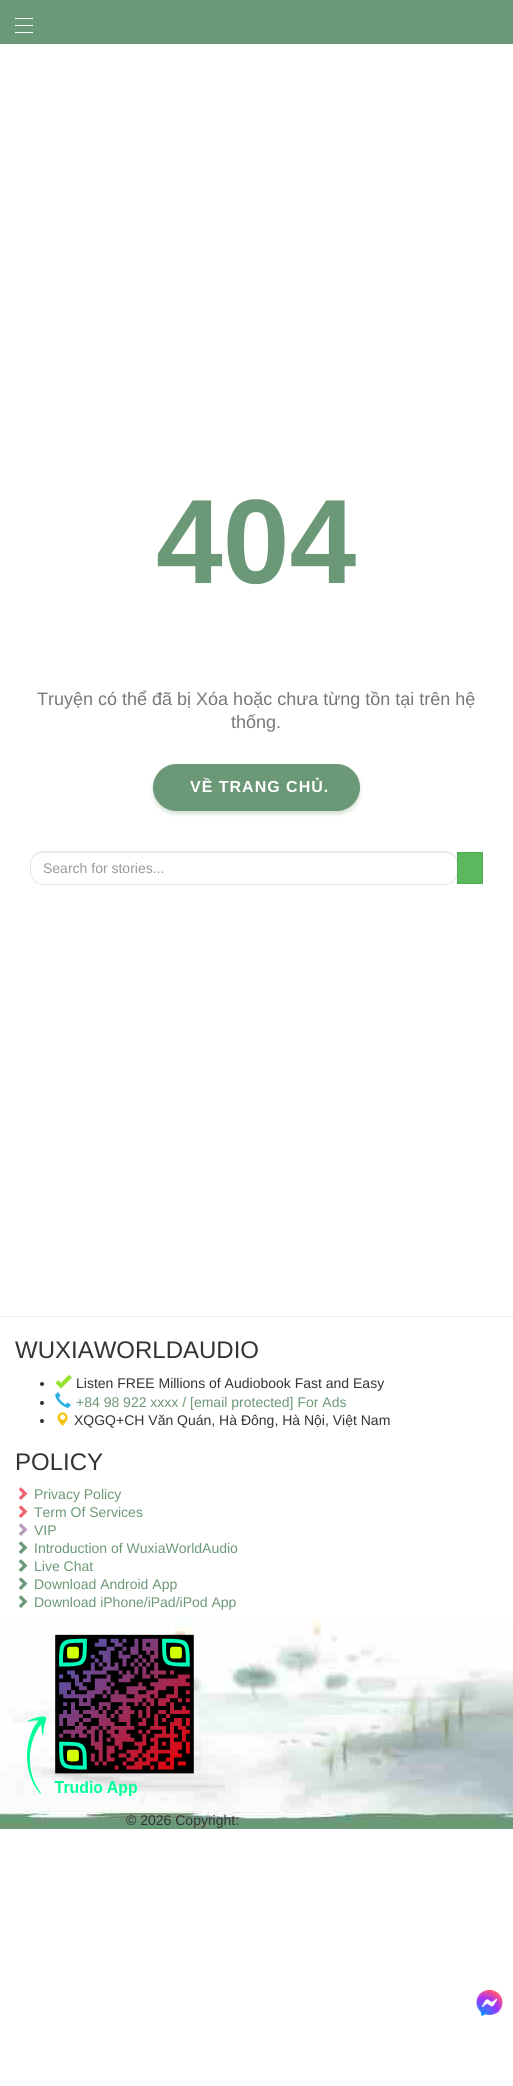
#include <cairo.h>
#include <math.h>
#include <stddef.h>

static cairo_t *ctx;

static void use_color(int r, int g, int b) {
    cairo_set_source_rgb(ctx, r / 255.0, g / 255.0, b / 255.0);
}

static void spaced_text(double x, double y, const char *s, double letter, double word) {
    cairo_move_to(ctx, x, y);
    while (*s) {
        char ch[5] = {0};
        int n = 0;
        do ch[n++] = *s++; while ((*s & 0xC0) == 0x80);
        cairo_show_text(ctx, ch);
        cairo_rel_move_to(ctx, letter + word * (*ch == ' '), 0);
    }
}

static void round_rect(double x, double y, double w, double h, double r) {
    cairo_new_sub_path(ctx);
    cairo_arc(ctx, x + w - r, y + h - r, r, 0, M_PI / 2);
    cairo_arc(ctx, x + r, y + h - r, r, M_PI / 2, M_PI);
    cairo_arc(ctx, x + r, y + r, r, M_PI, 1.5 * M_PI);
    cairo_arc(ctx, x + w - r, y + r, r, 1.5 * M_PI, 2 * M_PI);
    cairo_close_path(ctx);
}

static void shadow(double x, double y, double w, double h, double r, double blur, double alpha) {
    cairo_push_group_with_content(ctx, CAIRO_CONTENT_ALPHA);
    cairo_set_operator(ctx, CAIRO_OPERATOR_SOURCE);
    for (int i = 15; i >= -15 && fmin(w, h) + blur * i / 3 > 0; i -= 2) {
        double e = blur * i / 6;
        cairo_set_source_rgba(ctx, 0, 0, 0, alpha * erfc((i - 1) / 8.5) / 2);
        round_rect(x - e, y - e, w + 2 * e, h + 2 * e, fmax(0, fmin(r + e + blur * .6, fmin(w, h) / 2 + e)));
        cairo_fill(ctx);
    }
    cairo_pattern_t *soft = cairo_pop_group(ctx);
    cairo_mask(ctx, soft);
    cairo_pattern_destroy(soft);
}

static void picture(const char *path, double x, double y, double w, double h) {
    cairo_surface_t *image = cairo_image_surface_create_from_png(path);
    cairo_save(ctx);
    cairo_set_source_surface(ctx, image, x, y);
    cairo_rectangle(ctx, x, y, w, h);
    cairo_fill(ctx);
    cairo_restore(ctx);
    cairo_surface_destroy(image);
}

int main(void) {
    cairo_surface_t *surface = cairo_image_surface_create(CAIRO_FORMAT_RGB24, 513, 2086);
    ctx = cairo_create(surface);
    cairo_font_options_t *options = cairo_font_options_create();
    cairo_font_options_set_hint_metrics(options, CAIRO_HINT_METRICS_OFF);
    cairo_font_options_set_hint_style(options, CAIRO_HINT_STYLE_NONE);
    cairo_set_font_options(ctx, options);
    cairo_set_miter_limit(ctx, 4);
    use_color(255, 255, 255);
    cairo_paint(ctx);
    picture("img1.png", 0, 1618, 513, 211);
    use_color(107, 152, 118);
    cairo_rectangle(ctx, 0, 0, 513, 44);
    cairo_fill(ctx);
    use_color(255, 255, 255);
    cairo_rectangle(ctx, 15, 18, 18, 1);
    cairo_fill(ctx);
    cairo_rectangle(ctx, 15, 25, 18, 1);
    cairo_fill(ctx);
    cairo_rectangle(ctx, 15, 32, 18, 1);
    cairo_fill(ctx);
    cairo_select_font_face(ctx, "Liberation Sans", CAIRO_FONT_SLANT_NORMAL, CAIRO_FONT_WEIGHT_BOLD);
    cairo_set_font_size(ctx, 120);
    use_color(107, 152, 118);
    cairo_move_to(ctx, 156, 583);
    cairo_show_text(ctx, "404");
    cairo_select_font_face(ctx, "Liberation Sans", CAIRO_FONT_SLANT_NORMAL, CAIRO_FONT_WEIGHT_NORMAL);
    cairo_set_font_size(ctx, 18);
    use_color(119, 119, 119);
    cairo_move_to(ctx, 37, 705);
    cairo_show_text(ctx, "Truyện có thể đã bị Xóa hoặc chưa từng tồn tại trên hệ");
    cairo_move_to(ctx, 231, 728);
    cairo_show_text(ctx, "thống.");
    use_color(107, 152, 118);
    shadow(153, 767, 207, 47, 23.5, 2, 0.3);
    use_color(107, 152, 118);
    round_rect(153.5, 764.5, 206, 46, 23);
    cairo_fill_preserve(ctx);
    cairo_set_line_width(ctx, 1);
    cairo_stroke(ctx);
    cairo_select_font_face(ctx, "Liberation Sans", CAIRO_FONT_SLANT_NORMAL, CAIRO_FONT_WEIGHT_BOLD);
    cairo_set_font_size(ctx, 16);
    use_color(255, 255, 255);
    spaced_text(190, 792, "VỀ TRANG CHỦ.", 1, 0);
    use_color(236, 236, 236);
    cairo_new_path(ctx);
    cairo_move_to(ctx, 42, 853);
    cairo_line_to(ctx, 446, 853);
    cairo_curve_to(ctx, 452, 853, 457, 858, 457, 864);
    cairo_curve_to(ctx, 457, 857, 452, 852, 445, 852);
    cairo_line_to(ctx, 43, 852);
    cairo_curve_to(ctx, 36, 852, 31, 857, 31, 864);
    cairo_curve_to(ctx, 31, 858, 36, 853, 42, 853);
    cairo_close_path(ctx);
    cairo_fill(ctx);
    round_rect(30.5, 851.5, 427, 33, 12.5);
    use_color(230, 230, 230);
    cairo_stroke(ctx);
    cairo_select_font_face(ctx, "Liberation Sans", CAIRO_FONT_SLANT_NORMAL, CAIRO_FONT_WEIGHT_NORMAL);
    cairo_set_font_size(ctx, 14);
    use_color(153, 153, 153);
    cairo_move_to(ctx, 43, 873);
    cairo_show_text(ctx, "Search for stories...");
    use_color(92, 184, 92);
    cairo_rectangle(ctx, 457.5, 852.5, 25, 31);
    cairo_fill_preserve(ctx);
    use_color(76, 174, 76);
    cairo_stroke(ctx);
    use_color(238, 238, 238);
    cairo_rectangle(ctx, 0, 1316, 513, 1);
    cairo_fill(ctx);
    cairo_set_font_size(ctx, 24);
    use_color(51, 51, 51);
    cairo_move_to(ctx, 15, 1358);
    cairo_show_text(ctx, "WUXIAWORLDAUDIO");
    cairo_new_path(ctx);
    cairo_arc(ctx, 42, 1384, 2, 0, 2 * M_PI);
    cairo_fill(ctx);
    picture("img2.png", 55, 1375, 17, 14);
    cairo_set_font_size(ctx, 14);
    cairo_move_to(ctx, 76, 1388);
    cairo_show_text(ctx, "Listen FREE Millions of Audiobook Fast and Easy");
    cairo_new_path(ctx);
    cairo_arc(ctx, 42, 1403, 2, 0, 2 * M_PI);
    cairo_fill(ctx);
    picture("img3.png", 55, 1392, 16, 16);
    use_color(107, 152, 118);
    cairo_move_to(ctx, 76, 1407);
    cairo_show_text(ctx, "+84 98 922 xxxx / [email protected] For Ads");
    use_color(51, 51, 51);
    cairo_new_path(ctx);
    cairo_arc(ctx, 42, 1421, 2, 0, 2 * M_PI);
    cairo_fill(ctx);
    picture("img4.png", 57, 1412, 11, 14);
    cairo_move_to(ctx, 74, 1425);
    cairo_show_text(ctx, "XQGQ+CH Văn Quán, Hà Đông, Hà Nội, Việt Nam");
    cairo_set_font_size(ctx, 24);
    cairo_move_to(ctx, 15, 1470);
    cairo_show_text(ctx, "POLICY");
    picture("img5.png", 18, 1487, 10, 13);
    cairo_set_font_size(ctx, 14);
    use_color(107, 152, 118);
    cairo_move_to(ctx, 34, 1499);
    cairo_show_text(ctx, "Privacy Policy");
    picture("img5.png", 18, 1505, 10, 13);
    cairo_move_to(ctx, 34, 1517);
    cairo_show_text(ctx, "Term Of Services");
    picture("img6.png", 18, 1523, 10, 13);
    cairo_move_to(ctx, 34, 1535);
    cairo_show_text(ctx, "VIP");
    picture("img7.png", 18, 1541, 10, 13);
    cairo_move_to(ctx, 34, 1553);
    cairo_show_text(ctx, "Introduction of WuxiaWorldAudio");
    picture("img7.png", 18, 1559, 10, 13);
    cairo_move_to(ctx, 34, 1571);
    cairo_show_text(ctx, "Live Chat");
    picture("img7.png", 18, 1577, 10, 13);
    cairo_move_to(ctx, 34, 1589);
    cairo_show_text(ctx, "Download Android App");
    picture("img7.png", 18, 1595, 10, 13);
    cairo_move_to(ctx, 34, 1607);
    cairo_show_text(ctx, "Download iPhone/iPad/iPod App");
    picture("img8.png", 27, 1634, 167, 162);
    use_color(51, 51, 51);
    cairo_move_to(ctx, 126, 1825);
    cairo_show_text(ctx, "© 2026 Copyright:");
    picture("img9.png", 476, 1989, 27, 27);
    cairo_surface_write_to_png(surface, "result.png");
    cairo_font_options_destroy(options);
    cairo_destroy(ctx);
    cairo_surface_destroy(surface);
    return 0;
}
